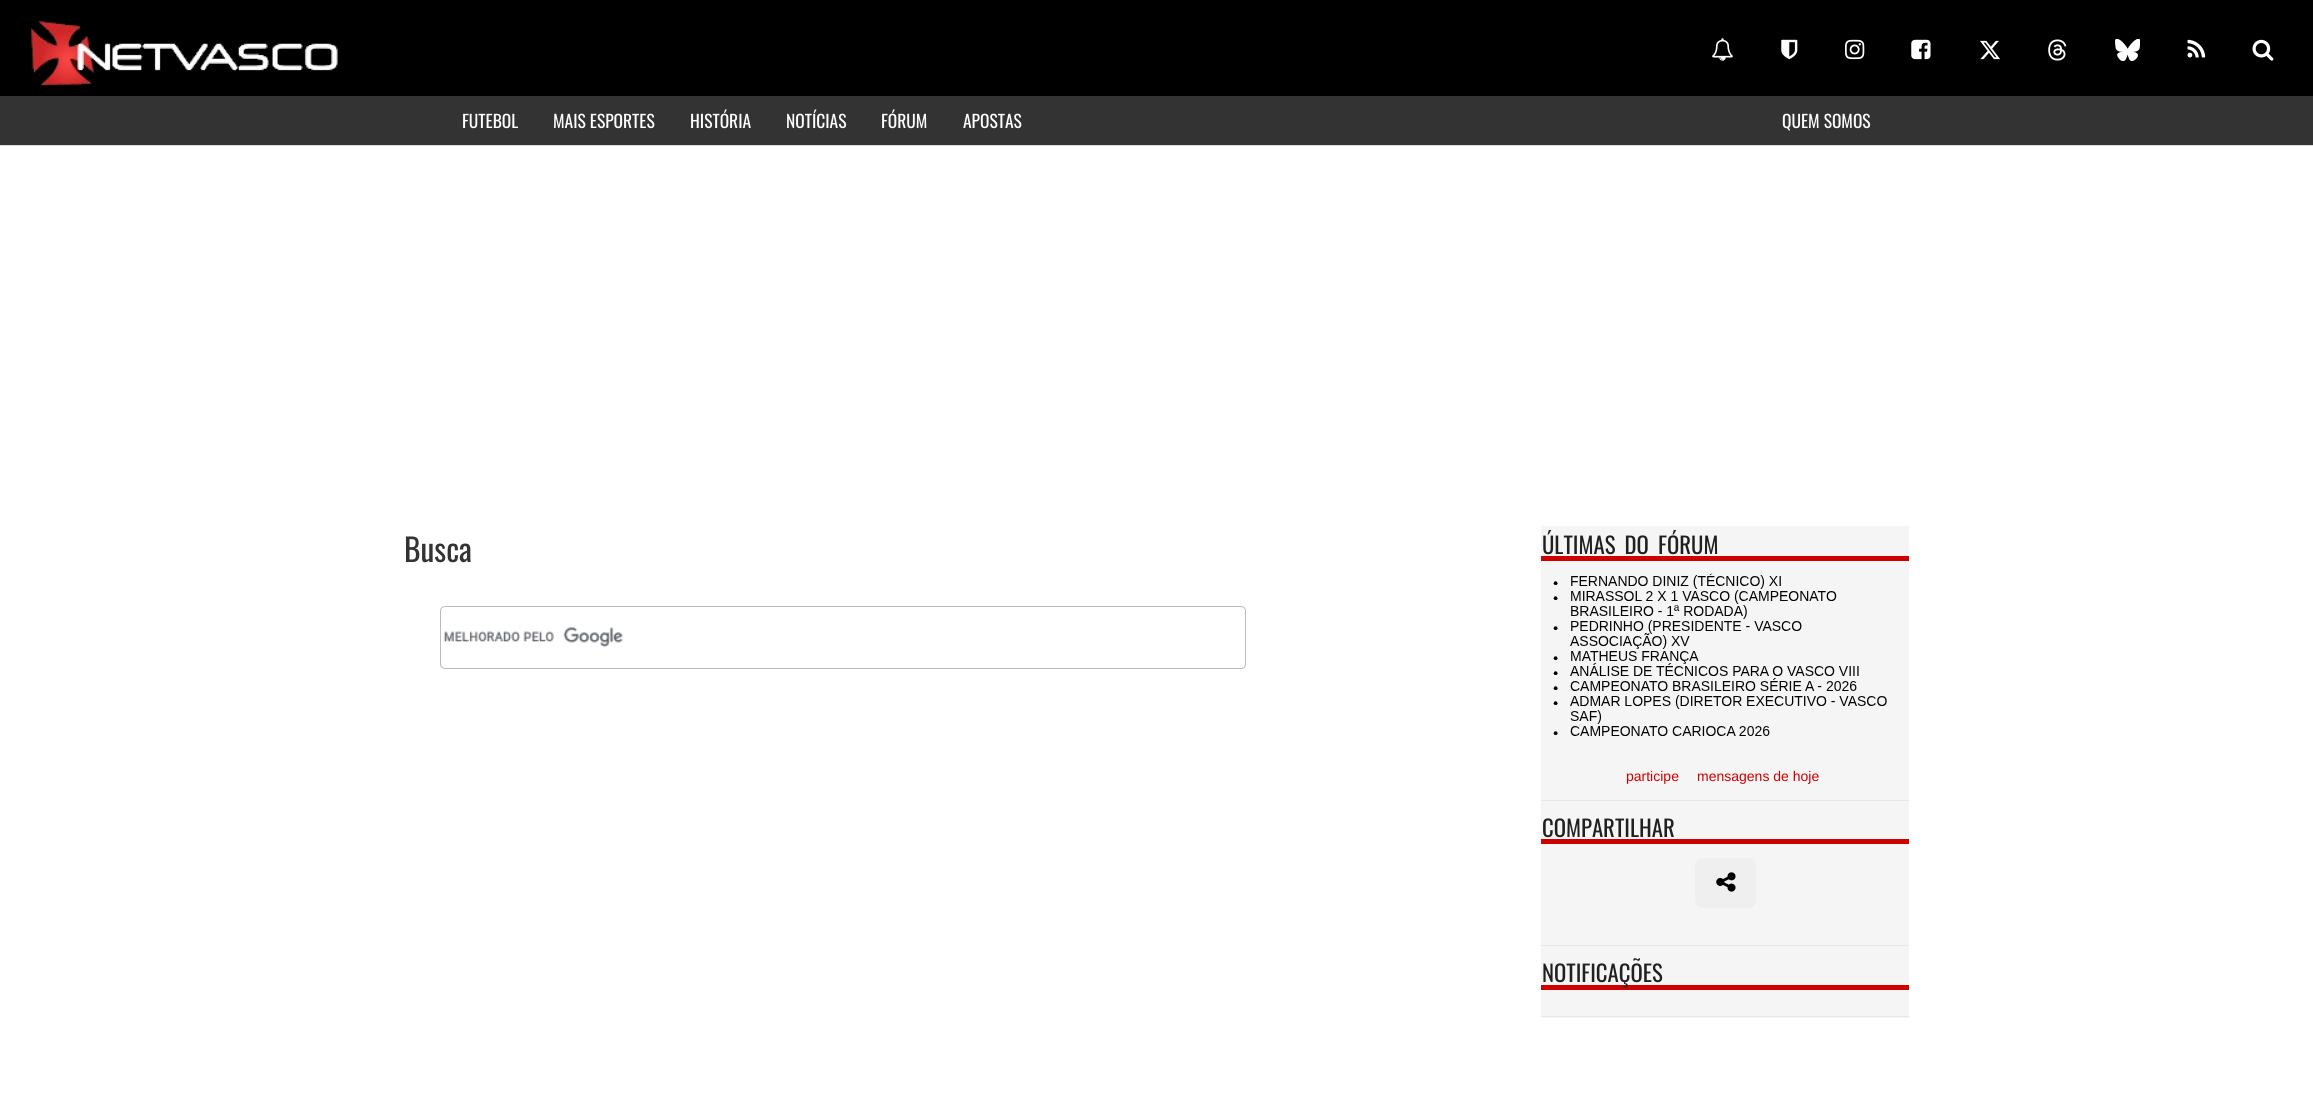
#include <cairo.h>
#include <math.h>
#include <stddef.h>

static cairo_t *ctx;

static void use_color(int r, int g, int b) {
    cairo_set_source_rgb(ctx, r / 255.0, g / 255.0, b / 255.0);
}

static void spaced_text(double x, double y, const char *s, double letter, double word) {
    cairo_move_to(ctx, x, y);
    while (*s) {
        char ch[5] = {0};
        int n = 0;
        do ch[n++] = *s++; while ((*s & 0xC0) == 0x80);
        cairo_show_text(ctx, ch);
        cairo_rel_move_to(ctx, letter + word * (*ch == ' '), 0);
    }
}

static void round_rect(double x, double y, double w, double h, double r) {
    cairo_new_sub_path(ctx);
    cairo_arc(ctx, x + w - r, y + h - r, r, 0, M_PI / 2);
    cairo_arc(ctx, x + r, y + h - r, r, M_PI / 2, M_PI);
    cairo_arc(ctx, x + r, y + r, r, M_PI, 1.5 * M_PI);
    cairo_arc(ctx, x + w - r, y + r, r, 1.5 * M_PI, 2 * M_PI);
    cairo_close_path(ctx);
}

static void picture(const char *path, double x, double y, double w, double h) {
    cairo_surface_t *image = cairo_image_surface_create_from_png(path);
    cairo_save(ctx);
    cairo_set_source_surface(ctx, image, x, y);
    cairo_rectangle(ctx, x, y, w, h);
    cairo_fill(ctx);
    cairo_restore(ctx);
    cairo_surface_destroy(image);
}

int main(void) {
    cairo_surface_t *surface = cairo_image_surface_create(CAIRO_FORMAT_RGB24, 2313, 1117);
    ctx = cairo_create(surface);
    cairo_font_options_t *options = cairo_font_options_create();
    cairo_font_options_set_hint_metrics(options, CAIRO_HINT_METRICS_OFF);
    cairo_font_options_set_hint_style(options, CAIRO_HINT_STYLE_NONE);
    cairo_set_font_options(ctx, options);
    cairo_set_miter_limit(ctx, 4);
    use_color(255, 255, 255);
    cairo_paint(ctx);
    use_color(0, 0, 0);
    cairo_rectangle(ctx, 0, 0, 2313, 96);
    cairo_fill(ctx);
    picture("img1.png", 18, 21, 326, 75);
    picture("img2.png", 1712, 38, 21, 23);
    picture("img3.png", 1781, 39, 17, 21);
    picture("img4.png", 1845, 39, 20, 21);
    picture("img5.png", 1911, 39, 20, 21);
    picture("img6.png", 1980, 40, 20, 20);
    picture("img7.png", 2048, 39, 19, 22);
    picture("img8.png", 2115, 39, 25, 22);
    picture("img9.png", 2187, 39, 19, 19);
    picture("img10.png", 2252, 39, 22, 22);
    use_color(51, 51, 51);
    cairo_rectangle(ctx, 0, 96, 2313, 49);
    cairo_fill(ctx);
    use_color(221, 221, 221);
    cairo_rectangle(ctx, 0, 145, 2313, 1);
    cairo_fill(ctx);
    cairo_select_font_face(ctx, "Oswald", CAIRO_FONT_SLANT_NORMAL, CAIRO_FONT_WEIGHT_NORMAL);
    cairo_set_font_size(ctx, 17.5);
    use_color(255, 255, 255);
    cairo_move_to(ctx, 462, 128);
    cairo_show_text(ctx, "FUTEBOL");
    cairo_move_to(ctx, 553, 128);
    cairo_show_text(ctx, "MAIS ESPORTES");
    cairo_move_to(ctx, 690, 128);
    cairo_show_text(ctx, "HISTÓRIA");
    cairo_move_to(ctx, 786, 128);
    cairo_show_text(ctx, "NOTÍCIAS");
    cairo_move_to(ctx, 881, 128);
    cairo_show_text(ctx, "FÓRUM");
    cairo_move_to(ctx, 963, 128);
    cairo_show_text(ctx, "APOSTAS");
    cairo_move_to(ctx, 1782, 128);
    cairo_show_text(ctx, "QUEM SOMOS");
    cairo_set_font_size(ctx, 31.5);
    use_color(51, 51, 51);
    cairo_move_to(ctx, 404, 562);
    cairo_show_text(ctx, "Busca");
    round_rect(440.5, 606.5, 805, 62, 4.5);
    use_color(187, 187, 187);
    cairo_set_line_width(ctx, 1);
    cairo_stroke(ctx);
    picture("img11.png", 443, 627, 180, 20);
    use_color(245, 245, 245);
    cairo_rectangle(ctx, 1541, 526, 368, 492);
    cairo_fill(ctx);
    use_color(207, 0, 0);
    cairo_rectangle(ctx, 1541, 556, 368, 5);
    cairo_fill(ctx);
    cairo_set_font_size(ctx, 22.75);
    use_color(32, 32, 33);
    spaced_text(1542, 554, "ÚLTIMAS DO FÓRUM", 0, 4);
    use_color(232, 232, 232);
    cairo_rectangle(ctx, 1541, 800, 368, 1);
    cairo_fill(ctx);
    picture("img12.png", 1553, 573, 334, 163);
    cairo_select_font_face(ctx, "Liberation Sans", CAIRO_FONT_SLANT_NORMAL, CAIRO_FONT_WEIGHT_NORMAL);
    cairo_set_font_size(ctx, 14);
    use_color(207, 0, 0);
    cairo_move_to(ctx, 1626, 781);
    cairo_show_text(ctx, "participe");
    cairo_move_to(ctx, 1697, 781);
    cairo_show_text(ctx, "mensagens de hoje");
    cairo_rectangle(ctx, 1541, 839, 368, 5);
    cairo_fill(ctx);
    cairo_select_font_face(ctx, "Oswald", CAIRO_FONT_SLANT_NORMAL, CAIRO_FONT_WEIGHT_NORMAL);
    cairo_set_font_size(ctx, 22.75);
    use_color(32, 32, 33);
    cairo_move_to(ctx, 1542, 837);
    cairo_show_text(ctx, "COMPARTILHAR");
    use_color(232, 232, 232);
    cairo_rectangle(ctx, 1541, 945, 368, 1);
    cairo_fill(ctx);
    use_color(239, 239, 239);
    round_rect(1695, 858, 61, 50, 8);
    cairo_fill(ctx);
    picture("img13.png", 1716, 872, 20, 20);
    use_color(207, 0, 0);
    cairo_rectangle(ctx, 1541, 985, 368, 5);
    cairo_fill(ctx);
    use_color(32, 32, 33);
    cairo_move_to(ctx, 1542, 982);
    cairo_show_text(ctx, "NOTIFICAÇÕES");
    use_color(232, 232, 232);
    cairo_rectangle(ctx, 1541, 1016, 368, 1);
    cairo_fill(ctx);
    cairo_surface_write_to_png(surface, "result.png");
    cairo_font_options_destroy(options);
    cairo_destroy(ctx);
    cairo_surface_destroy(surface);
    return 0;
}
